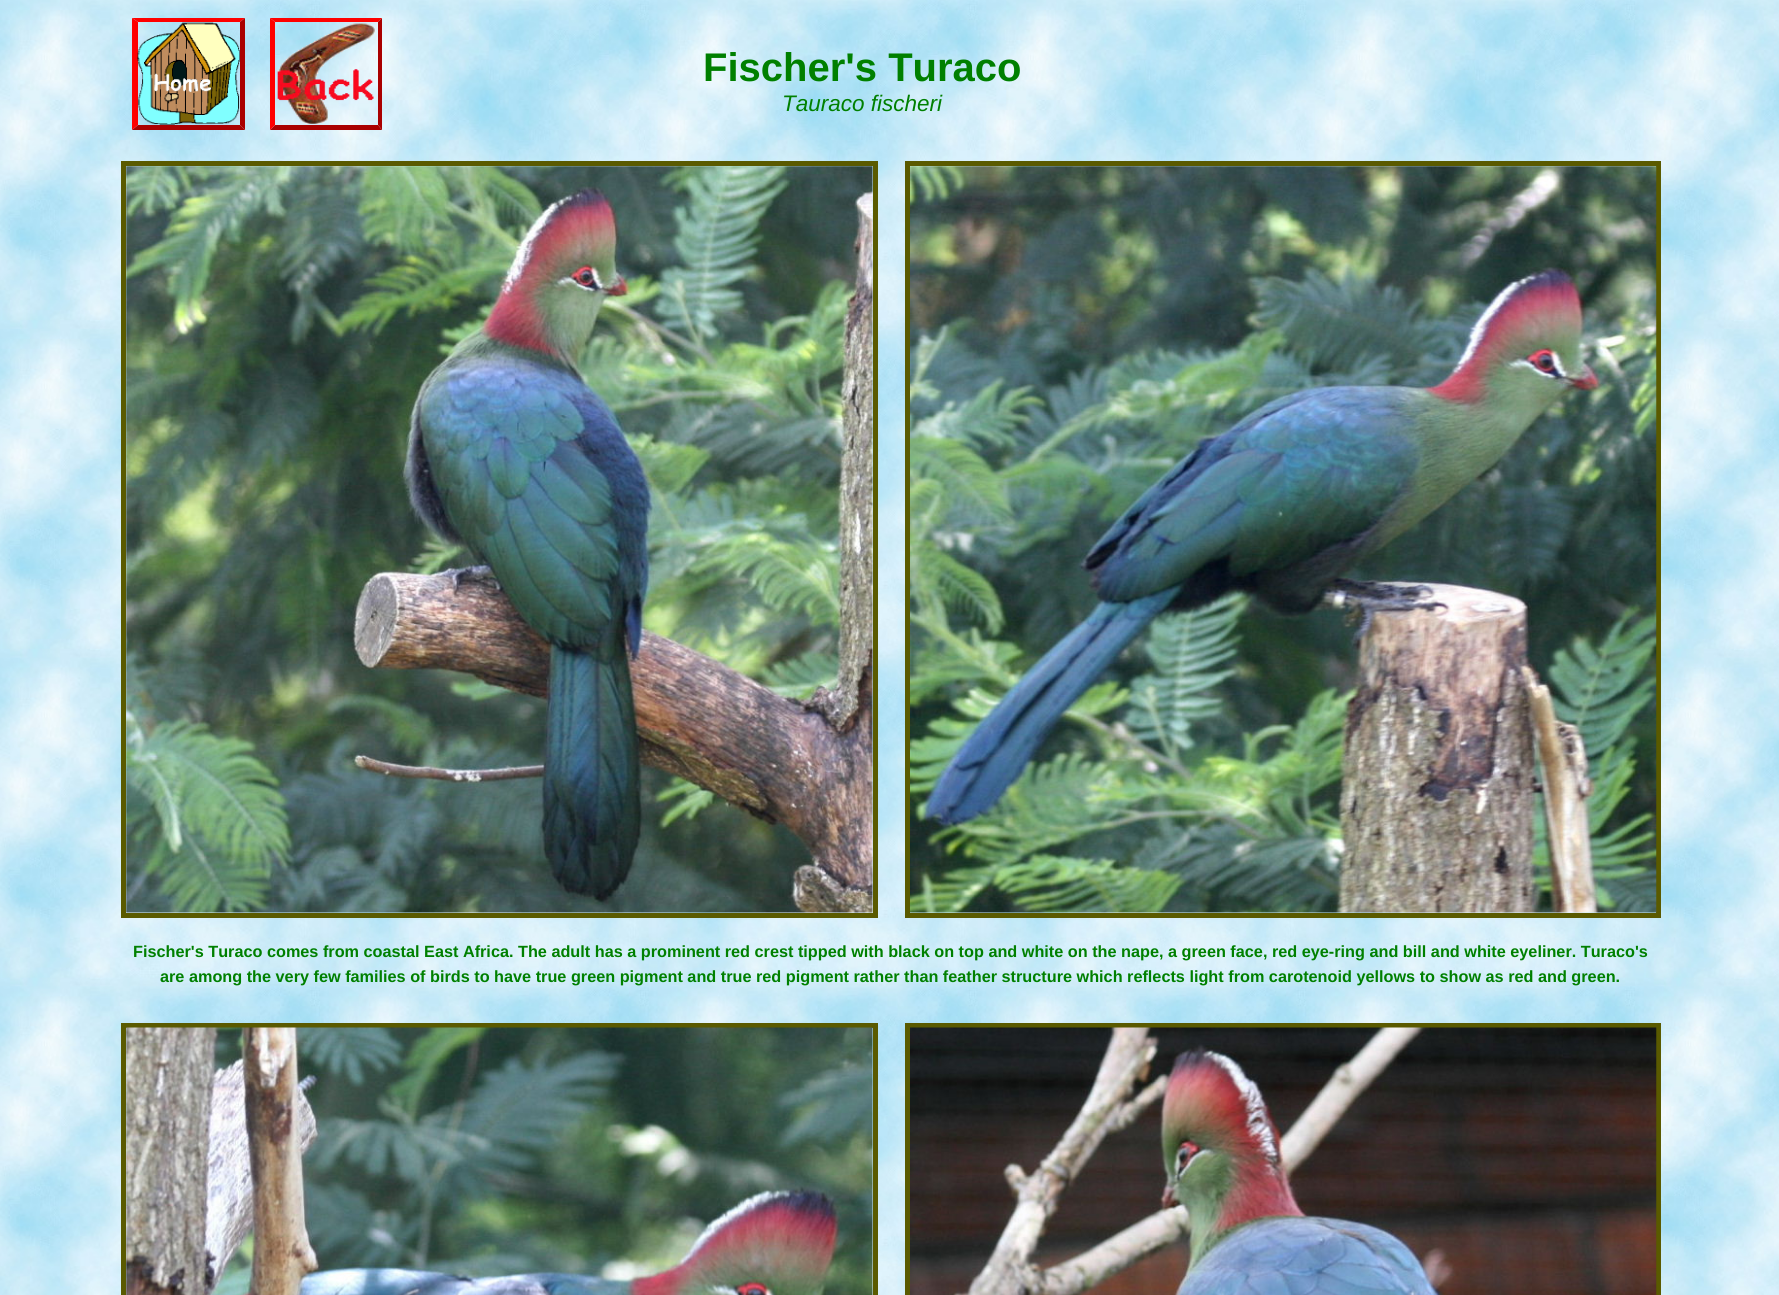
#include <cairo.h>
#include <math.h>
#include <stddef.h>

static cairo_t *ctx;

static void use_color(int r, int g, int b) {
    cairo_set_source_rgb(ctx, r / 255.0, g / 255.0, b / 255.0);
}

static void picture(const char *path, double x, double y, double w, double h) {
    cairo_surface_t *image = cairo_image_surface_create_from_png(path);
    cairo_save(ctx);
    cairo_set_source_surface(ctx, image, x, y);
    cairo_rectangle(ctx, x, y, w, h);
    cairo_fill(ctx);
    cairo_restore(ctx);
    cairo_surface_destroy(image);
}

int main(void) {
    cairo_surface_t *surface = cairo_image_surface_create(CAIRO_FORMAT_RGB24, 1779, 1295);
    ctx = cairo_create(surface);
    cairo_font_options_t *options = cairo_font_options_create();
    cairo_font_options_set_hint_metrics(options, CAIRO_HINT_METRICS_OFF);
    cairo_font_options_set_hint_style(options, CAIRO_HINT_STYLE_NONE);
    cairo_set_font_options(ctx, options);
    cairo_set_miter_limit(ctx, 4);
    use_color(255, 255, 255);
    cairo_paint(ctx);
    picture("img1.png", 0, 0, 1779, 1295);
    use_color(255, 0, 0);
    cairo_new_path(ctx);
    cairo_move_to(ctx, 132, 18);
    cairo_line_to(ctx, 245, 18);
    cairo_line_to(ctx, 240, 22);
    cairo_line_to(ctx, 138, 22);
    cairo_close_path(ctx);
    cairo_fill(ctx);
    use_color(170, 0, 0);
    cairo_new_path(ctx);
    cairo_move_to(ctx, 245, 18);
    cairo_line_to(ctx, 245, 130);
    cairo_line_to(ctx, 240, 125);
    cairo_line_to(ctx, 240, 22);
    cairo_close_path(ctx);
    cairo_fill(ctx);
    cairo_new_path(ctx);
    cairo_move_to(ctx, 245, 130);
    cairo_line_to(ctx, 132, 130);
    cairo_line_to(ctx, 138, 125);
    cairo_line_to(ctx, 240, 125);
    cairo_close_path(ctx);
    cairo_fill(ctx);
    use_color(255, 0, 0);
    cairo_new_path(ctx);
    cairo_move_to(ctx, 132, 130);
    cairo_line_to(ctx, 132, 18);
    cairo_line_to(ctx, 138, 22);
    cairo_line_to(ctx, 138, 125);
    cairo_close_path(ctx);
    cairo_fill(ctx);
    cairo_new_path(ctx);
    cairo_move_to(ctx, 270, 18);
    cairo_line_to(ctx, 382, 18);
    cairo_line_to(ctx, 378, 22);
    cairo_line_to(ctx, 275, 22);
    cairo_close_path(ctx);
    cairo_fill(ctx);
    picture("img2.png", 137, 22, 103, 103);
    use_color(170, 0, 0);
    cairo_new_path(ctx);
    cairo_move_to(ctx, 382, 18);
    cairo_line_to(ctx, 382, 130);
    cairo_line_to(ctx, 378, 125);
    cairo_line_to(ctx, 378, 22);
    cairo_close_path(ctx);
    cairo_fill(ctx);
    cairo_new_path(ctx);
    cairo_move_to(ctx, 382, 130);
    cairo_line_to(ctx, 270, 130);
    cairo_line_to(ctx, 275, 125);
    cairo_line_to(ctx, 378, 125);
    cairo_close_path(ctx);
    cairo_fill(ctx);
    use_color(255, 0, 0);
    cairo_new_path(ctx);
    cairo_move_to(ctx, 270, 130);
    cairo_line_to(ctx, 270, 18);
    cairo_line_to(ctx, 275, 22);
    cairo_line_to(ctx, 275, 125);
    cairo_close_path(ctx);
    cairo_fill(ctx);
    picture("img3.png", 277, 23, 98, 101);
    cairo_select_font_face(ctx, "Liberation Sans", CAIRO_FONT_SLANT_NORMAL, CAIRO_FONT_WEIGHT_BOLD);
    cairo_set_font_size(ctx, 40);
    use_color(0, 128, 0);
    cairo_move_to(ctx, 703, 81);
    cairo_show_text(ctx, "Fischer's Turaco");
    cairo_select_font_face(ctx, "Liberation Sans", CAIRO_FONT_SLANT_ITALIC, CAIRO_FONT_WEIGHT_NORMAL);
    cairo_set_font_size(ctx, 22.5);
    cairo_move_to(ctx, 782, 111);
    cairo_show_text(ctx, "Tauraco fischeri");
    cairo_rectangle(ctx, 123.5, 163.5, 752, 752);
    use_color(90, 90, 0);
    cairo_set_line_width(ctx, 5);
    cairo_stroke(ctx);
    picture("img4.png", 126, 166, 747, 747);
    cairo_rectangle(ctx, 907.5, 163.5, 751, 752);
    cairo_stroke(ctx);
    picture("img5.png", 910, 166, 747, 747);
    cairo_select_font_face(ctx, "Liberation Sans", CAIRO_FONT_SLANT_NORMAL, CAIRO_FONT_WEIGHT_BOLD);
    cairo_set_font_size(ctx, 16.25);
    use_color(0, 128, 0);
    cairo_move_to(ctx, 133, 957);
    cairo_show_text(ctx, "Fischer's Turaco comes from coastal East Africa. The adult has a prominent red crest tipped with black on top and white on the nape, a green face, red eye-ring and bill and white eyeliner. Turaco's");
    cairo_move_to(ctx, 160, 982);
    cairo_show_text(ctx, "are among the very few families of birds to have true green pigment and true red pigment rather than feather structure which reflects light from carotenoid yellows to show as red and green.");
    cairo_rectangle(ctx, 123.5, 1025.5, 752, 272);
    use_color(90, 90, 0);
    cairo_stroke(ctx);
    picture("img6.png", 126, 1027, 747, 268);
    cairo_rectangle(ctx, 907.5, 1025.5, 751, 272);
    cairo_stroke(ctx);
    picture("img7.png", 910, 1027, 747, 268);
    cairo_surface_write_to_png(surface, "result.png");
    cairo_font_options_destroy(options);
    cairo_destroy(ctx);
    cairo_surface_destroy(surface);
    return 0;
}
